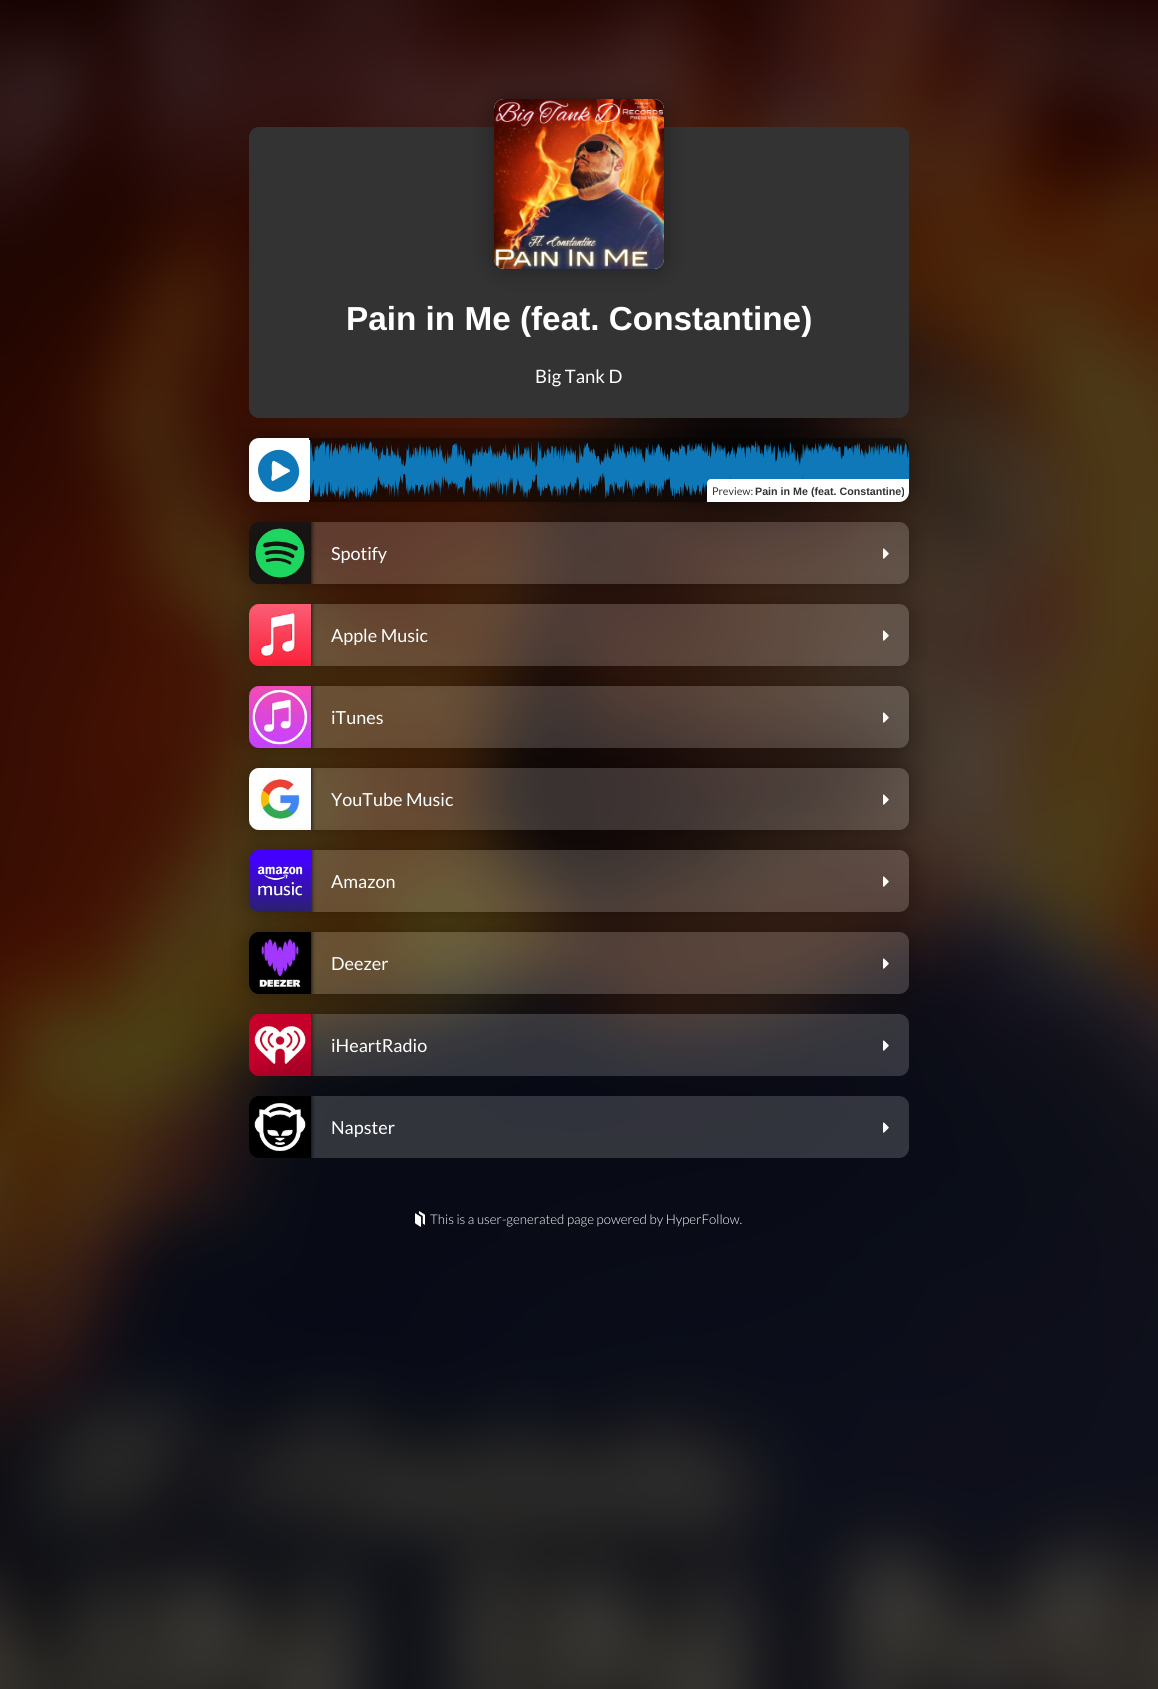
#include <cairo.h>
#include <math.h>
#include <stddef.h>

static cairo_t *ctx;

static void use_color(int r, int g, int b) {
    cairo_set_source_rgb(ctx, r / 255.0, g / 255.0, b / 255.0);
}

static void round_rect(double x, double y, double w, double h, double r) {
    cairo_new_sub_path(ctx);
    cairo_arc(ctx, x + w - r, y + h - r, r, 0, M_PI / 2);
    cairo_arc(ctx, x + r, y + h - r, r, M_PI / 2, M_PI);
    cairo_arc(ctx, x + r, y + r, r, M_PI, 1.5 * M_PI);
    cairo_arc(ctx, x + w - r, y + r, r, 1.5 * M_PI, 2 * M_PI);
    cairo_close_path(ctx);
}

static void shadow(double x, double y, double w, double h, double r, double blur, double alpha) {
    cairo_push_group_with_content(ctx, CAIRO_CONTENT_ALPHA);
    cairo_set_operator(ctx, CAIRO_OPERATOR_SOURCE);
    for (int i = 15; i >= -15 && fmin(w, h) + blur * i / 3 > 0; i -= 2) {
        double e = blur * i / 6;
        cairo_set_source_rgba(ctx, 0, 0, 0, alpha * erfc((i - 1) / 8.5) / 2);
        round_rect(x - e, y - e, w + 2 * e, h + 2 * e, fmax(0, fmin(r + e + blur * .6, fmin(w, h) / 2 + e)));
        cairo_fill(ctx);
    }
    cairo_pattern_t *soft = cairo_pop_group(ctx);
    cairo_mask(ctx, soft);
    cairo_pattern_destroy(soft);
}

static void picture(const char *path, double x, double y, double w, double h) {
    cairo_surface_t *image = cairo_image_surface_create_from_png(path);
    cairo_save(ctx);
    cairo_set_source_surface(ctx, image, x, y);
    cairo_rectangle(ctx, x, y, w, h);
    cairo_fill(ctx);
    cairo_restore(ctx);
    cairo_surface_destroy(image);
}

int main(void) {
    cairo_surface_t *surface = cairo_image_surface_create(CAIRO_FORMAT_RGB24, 1158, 1689);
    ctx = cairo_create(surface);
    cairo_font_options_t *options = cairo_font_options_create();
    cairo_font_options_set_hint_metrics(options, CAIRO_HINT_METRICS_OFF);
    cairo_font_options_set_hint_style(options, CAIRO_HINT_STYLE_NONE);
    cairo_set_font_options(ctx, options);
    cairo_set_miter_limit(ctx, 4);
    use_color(0, 0, 0);
    cairo_paint(ctx);
    picture("img1.png", 0, 0, 1158, 1689);
    use_color(51, 51, 51);
    round_rect(249, 127, 660, 291, 10);
    cairo_fill(ctx);
    use_color(0, 0, 0);
    shadow(494, 99, 170, 170, 10, 12.5, 0.35);
    use_color(204, 204, 204);
    round_rect(494, 99, 170, 170, 10);
    cairo_fill(ctx);
    picture("img2.png", 494, 99, 170, 170);
    cairo_select_font_face(ctx, "Liberation Sans", CAIRO_FONT_SLANT_NORMAL, CAIRO_FONT_WEIGHT_BOLD);
    cairo_set_font_size(ctx, 33.3);
    use_color(255, 255, 255);
    cairo_move_to(ctx, 346, 330);
    cairo_show_text(ctx, "Pain in Me (feat. Constantine)");
    cairo_select_font_face(ctx, "Lato", CAIRO_FONT_SLANT_NORMAL, CAIRO_FONT_WEIGHT_NORMAL);
    cairo_set_font_size(ctx, 18.5);
    cairo_move_to(ctx, 535, 383);
    cairo_show_text(ctx, "Big Tank D");
    cairo_save(ctx);
    cairo_rectangle(ctx, 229, 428, 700, 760);
    cairo_clip(ctx);
    cairo_set_fill_rule(ctx, CAIRO_FILL_RULE_EVEN_ODD);
    cairo_new_path(ctx);
    cairo_move_to(ctx, 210, 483);
    cairo_line_to(ctx, 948, 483);
    cairo_line_to(ctx, 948, 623);
    cairo_line_to(ctx, 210, 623);
    cairo_close_path(ctx);
    cairo_move_to(ctx, 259, 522);
    cairo_line_to(ctx, 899, 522);
    cairo_curve_to(ctx, 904.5, 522, 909, 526.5, 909, 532);
    cairo_line_to(ctx, 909, 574);
    cairo_curve_to(ctx, 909, 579.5, 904.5, 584, 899, 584);
    cairo_line_to(ctx, 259, 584);
    cairo_curve_to(ctx, 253.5, 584, 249, 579.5, 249, 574);
    cairo_line_to(ctx, 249, 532);
    cairo_curve_to(ctx, 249, 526.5, 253.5, 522, 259, 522);
    cairo_close_path(ctx);
    cairo_clip(ctx);
    use_color(0, 0, 0);
    shadow(249, 522, 660, 62, 10, 12.5, 0.35);
    cairo_restore(ctx);
    cairo_set_source_rgba(ctx, 1, 1, 1, 0.17);
    round_rect(249, 522, 660, 62, 10);
    cairo_fill(ctx);
    cairo_save(ctx);
    round_rect(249, 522, 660, 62, 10);
    cairo_clip(ctx);
    use_color(0, 0, 0);
    shadow(249, 522, 62, 62, 0, 2.5, 1);
    cairo_restore(ctx);
    picture("img4.png", 249, 522, 62, 62);
    cairo_save(ctx);
    cairo_rectangle(ctx, 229, 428, 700, 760);
    cairo_clip(ctx);
    cairo_set_fill_rule(ctx, CAIRO_FILL_RULE_EVEN_ODD);
    cairo_new_path(ctx);
    cairo_move_to(ctx, 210, 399);
    cairo_line_to(ctx, 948, 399);
    cairo_line_to(ctx, 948, 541);
    cairo_line_to(ctx, 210, 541);
    cairo_close_path(ctx);
    cairo_move_to(ctx, 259, 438);
    cairo_line_to(ctx, 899, 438);
    cairo_curve_to(ctx, 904.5, 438, 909, 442.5, 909, 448);
    cairo_line_to(ctx, 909, 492);
    cairo_curve_to(ctx, 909, 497.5, 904.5, 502, 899, 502);
    cairo_line_to(ctx, 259, 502);
    cairo_curve_to(ctx, 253.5, 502, 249, 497.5, 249, 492);
    cairo_line_to(ctx, 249, 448);
    cairo_curve_to(ctx, 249, 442.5, 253.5, 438, 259, 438);
    cairo_close_path(ctx);
    cairo_clip(ctx);
    use_color(0, 0, 0);
    shadow(249, 438, 660, 64, 10, 12.5, 0.35);
    cairo_restore(ctx);
    use_color(255, 255, 255);
    cairo_new_path(ctx);
    cairo_move_to(ctx, 259, 438);
    cairo_line_to(ctx, 309, 438);
    cairo_line_to(ctx, 309, 502);
    cairo_line_to(ctx, 259, 502);
    cairo_curve_to(ctx, 253.5, 502, 249, 497.5, 249, 492);
    cairo_line_to(ctx, 249, 448);
    cairo_curve_to(ctx, 249, 442.5, 253.5, 438, 259, 438);
    cairo_close_path(ctx);
    cairo_fill(ctx);
    use_color(15, 120, 184);
    cairo_new_path(ctx);
    cairo_move_to(ctx, 268, 453);
    cairo_curve_to(ctx, 292, 439, 312, 475, 289, 489);
    cairo_curve_to(ctx, 266, 502, 245, 467, 268, 453);
    cairo_close_path(ctx);
    cairo_move_to(ctx, 289, 472);
    cairo_curve_to(ctx, 293, 470, 284, 467, 284, 467);
    cairo_curve_to(ctx, 282, 465, 274, 460, 273, 461);
    cairo_curve_to(ctx, 271, 462, 272, 472, 272, 474);
    cairo_curve_to(ctx, 272, 475, 270, 481, 273, 481);
    cairo_close_path(ctx);
    cairo_fill(ctx);
    cairo_set_source_rgba(ctx, 0, 0, 0, 0.5);
    cairo_new_path(ctx);
    cairo_move_to(ctx, 309, 438);
    cairo_line_to(ctx, 899, 438);
    cairo_curve_to(ctx, 904.5, 438, 909, 442.5, 909, 448);
    cairo_line_to(ctx, 909, 492);
    cairo_curve_to(ctx, 909, 497.5, 904.5, 502, 899, 502);
    cairo_line_to(ctx, 309, 502);
    cairo_close_path(ctx);
    cairo_fill(ctx);
    use_color(255, 255, 255);
    cairo_rectangle(ctx, 309, 440, 1, 60);
    cairo_fill(ctx);
    picture("img3.png", 310, 440, 599, 60);
    cairo_new_path(ctx);
    cairo_move_to(ctx, 711, 479);
    cairo_line_to(ctx, 909, 479);
    cairo_line_to(ctx, 909, 492);
    cairo_curve_to(ctx, 909, 497.5, 904.5, 502, 899, 502);
    cairo_line_to(ctx, 707, 502);
    cairo_line_to(ctx, 707, 483);
    cairo_curve_to(ctx, 707, 481, 709, 479, 711, 479);
    cairo_close_path(ctx);
    cairo_fill(ctx);
    cairo_set_font_size(ctx, 10.7);
    use_color(51, 51, 51);
    cairo_move_to(ctx, 712, 495);
    cairo_show_text(ctx, "Preview:");
    cairo_save(ctx);
    cairo_rectangle(ctx, 712, 484, 192, 13);
    cairo_clip(ctx);
    cairo_select_font_face(ctx, "Liberation Sans", CAIRO_FONT_SLANT_NORMAL, CAIRO_FONT_WEIGHT_BOLD);
    cairo_move_to(ctx, 755, 495);
    cairo_show_text(ctx, "Pain in Me (feat. Constantine)");
    cairo_restore(ctx);
    cairo_set_font_size(ctx, 18);
    use_color(255, 255, 255);
    cairo_move_to(ctx, 331, 560);
    cairo_show_text(ctx, "Spotify");
    picture("img5.png", 883, 548, 6, 11);
    cairo_save(ctx);
    cairo_rectangle(ctx, 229, 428, 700, 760);
    cairo_clip(ctx);
    cairo_set_fill_rule(ctx, CAIRO_FILL_RULE_EVEN_ODD);
    cairo_new_path(ctx);
    cairo_move_to(ctx, 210, 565);
    cairo_line_to(ctx, 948, 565);
    cairo_line_to(ctx, 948, 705);
    cairo_line_to(ctx, 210, 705);
    cairo_close_path(ctx);
    cairo_move_to(ctx, 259, 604);
    cairo_line_to(ctx, 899, 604);
    cairo_curve_to(ctx, 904.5, 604, 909, 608.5, 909, 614);
    cairo_line_to(ctx, 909, 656);
    cairo_curve_to(ctx, 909, 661.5, 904.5, 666, 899, 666);
    cairo_line_to(ctx, 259, 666);
    cairo_curve_to(ctx, 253.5, 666, 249, 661.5, 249, 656);
    cairo_line_to(ctx, 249, 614);
    cairo_curve_to(ctx, 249, 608.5, 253.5, 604, 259, 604);
    cairo_close_path(ctx);
    cairo_clip(ctx);
    use_color(0, 0, 0);
    shadow(249, 604, 660, 62, 10, 12.5, 0.35);
    cairo_restore(ctx);
    cairo_set_source_rgba(ctx, 1, 1, 1, 0.17);
    round_rect(249, 604, 660, 62, 10);
    cairo_fill(ctx);
    cairo_save(ctx);
    round_rect(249, 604, 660, 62, 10);
    cairo_clip(ctx);
    use_color(0, 0, 0);
    shadow(249, 604, 62, 62, 0, 2.5, 1);
    cairo_restore(ctx);
    picture("img6.png", 249, 604, 62, 62);
    use_color(255, 255, 255);
    cairo_move_to(ctx, 331, 642);
    cairo_show_text(ctx, "Apple Music");
    picture("img7.png", 883, 630, 6, 11);
    cairo_save(ctx);
    cairo_rectangle(ctx, 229, 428, 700, 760);
    cairo_clip(ctx);
    cairo_set_fill_rule(ctx, CAIRO_FILL_RULE_EVEN_ODD);
    cairo_new_path(ctx);
    cairo_move_to(ctx, 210, 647);
    cairo_line_to(ctx, 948, 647);
    cairo_line_to(ctx, 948, 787);
    cairo_line_to(ctx, 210, 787);
    cairo_close_path(ctx);
    cairo_move_to(ctx, 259, 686);
    cairo_line_to(ctx, 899, 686);
    cairo_curve_to(ctx, 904.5, 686, 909, 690.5, 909, 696);
    cairo_line_to(ctx, 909, 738);
    cairo_curve_to(ctx, 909, 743.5, 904.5, 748, 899, 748);
    cairo_line_to(ctx, 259, 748);
    cairo_curve_to(ctx, 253.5, 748, 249, 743.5, 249, 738);
    cairo_line_to(ctx, 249, 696);
    cairo_curve_to(ctx, 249, 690.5, 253.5, 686, 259, 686);
    cairo_close_path(ctx);
    cairo_clip(ctx);
    use_color(0, 0, 0);
    shadow(249, 686, 660, 62, 10, 12.5, 0.35);
    cairo_restore(ctx);
    cairo_set_source_rgba(ctx, 1, 1, 1, 0.17);
    round_rect(249, 686, 660, 62, 10);
    cairo_fill(ctx);
    cairo_save(ctx);
    round_rect(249, 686, 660, 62, 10);
    cairo_clip(ctx);
    use_color(0, 0, 0);
    shadow(249, 686, 62, 62, 0, 2.5, 1);
    cairo_restore(ctx);
    picture("img8.png", 249, 686, 62, 62);
    use_color(255, 255, 255);
    cairo_move_to(ctx, 331, 724);
    cairo_show_text(ctx, "iTunes");
    picture("img9.png", 883, 712, 6, 11);
    cairo_save(ctx);
    cairo_rectangle(ctx, 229, 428, 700, 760);
    cairo_clip(ctx);
    cairo_set_fill_rule(ctx, CAIRO_FILL_RULE_EVEN_ODD);
    cairo_new_path(ctx);
    cairo_move_to(ctx, 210, 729);
    cairo_line_to(ctx, 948, 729);
    cairo_line_to(ctx, 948, 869);
    cairo_line_to(ctx, 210, 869);
    cairo_close_path(ctx);
    cairo_move_to(ctx, 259, 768);
    cairo_line_to(ctx, 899, 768);
    cairo_curve_to(ctx, 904.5, 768, 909, 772.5, 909, 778);
    cairo_line_to(ctx, 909, 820);
    cairo_curve_to(ctx, 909, 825.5, 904.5, 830, 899, 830);
    cairo_line_to(ctx, 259, 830);
    cairo_curve_to(ctx, 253.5, 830, 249, 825.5, 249, 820);
    cairo_line_to(ctx, 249, 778);
    cairo_curve_to(ctx, 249, 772.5, 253.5, 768, 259, 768);
    cairo_close_path(ctx);
    cairo_clip(ctx);
    use_color(0, 0, 0);
    shadow(249, 768, 660, 62, 10, 12.5, 0.35);
    cairo_restore(ctx);
    cairo_set_source_rgba(ctx, 1, 1, 1, 0.17);
    round_rect(249, 768, 660, 62, 10);
    cairo_fill(ctx);
    cairo_save(ctx);
    round_rect(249, 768, 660, 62, 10);
    cairo_clip(ctx);
    use_color(0, 0, 0);
    shadow(249, 768, 62, 62, 0, 2.5, 1);
    cairo_restore(ctx);
    picture("img10.png", 249, 768, 62, 62);
    use_color(255, 255, 255);
    cairo_move_to(ctx, 331, 806);
    cairo_show_text(ctx, "YouTube Music");
    picture("img11.png", 883, 794, 6, 11);
    cairo_save(ctx);
    cairo_rectangle(ctx, 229, 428, 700, 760);
    cairo_clip(ctx);
    cairo_set_fill_rule(ctx, CAIRO_FILL_RULE_EVEN_ODD);
    cairo_new_path(ctx);
    cairo_move_to(ctx, 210, 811);
    cairo_line_to(ctx, 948, 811);
    cairo_line_to(ctx, 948, 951);
    cairo_line_to(ctx, 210, 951);
    cairo_close_path(ctx);
    cairo_move_to(ctx, 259, 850);
    cairo_line_to(ctx, 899, 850);
    cairo_curve_to(ctx, 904.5, 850, 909, 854.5, 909, 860);
    cairo_line_to(ctx, 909, 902);
    cairo_curve_to(ctx, 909, 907.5, 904.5, 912, 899, 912);
    cairo_line_to(ctx, 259, 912);
    cairo_curve_to(ctx, 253.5, 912, 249, 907.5, 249, 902);
    cairo_line_to(ctx, 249, 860);
    cairo_curve_to(ctx, 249, 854.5, 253.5, 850, 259, 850);
    cairo_close_path(ctx);
    cairo_clip(ctx);
    use_color(0, 0, 0);
    shadow(249, 850, 660, 62, 10, 12.5, 0.35);
    cairo_restore(ctx);
    cairo_set_source_rgba(ctx, 1, 1, 1, 0.17);
    round_rect(249, 850, 660, 62, 10);
    cairo_fill(ctx);
    cairo_save(ctx);
    round_rect(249, 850, 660, 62, 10);
    cairo_clip(ctx);
    use_color(0, 0, 0);
    shadow(249, 850, 62, 62, 0, 2.5, 1);
    cairo_restore(ctx);
    picture("img12.png", 249, 850, 62, 62);
    use_color(255, 255, 255);
    cairo_move_to(ctx, 331, 888);
    cairo_show_text(ctx, "Amazon");
    picture("img13.png", 883, 876, 6, 11);
    cairo_save(ctx);
    cairo_rectangle(ctx, 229, 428, 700, 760);
    cairo_clip(ctx);
    cairo_set_fill_rule(ctx, CAIRO_FILL_RULE_EVEN_ODD);
    cairo_new_path(ctx);
    cairo_move_to(ctx, 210, 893);
    cairo_line_to(ctx, 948, 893);
    cairo_line_to(ctx, 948, 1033);
    cairo_line_to(ctx, 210, 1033);
    cairo_close_path(ctx);
    cairo_move_to(ctx, 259, 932);
    cairo_line_to(ctx, 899, 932);
    cairo_curve_to(ctx, 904.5, 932, 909, 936.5, 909, 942);
    cairo_line_to(ctx, 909, 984);
    cairo_curve_to(ctx, 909, 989.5, 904.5, 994, 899, 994);
    cairo_line_to(ctx, 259, 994);
    cairo_curve_to(ctx, 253.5, 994, 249, 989.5, 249, 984);
    cairo_line_to(ctx, 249, 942);
    cairo_curve_to(ctx, 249, 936.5, 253.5, 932, 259, 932);
    cairo_close_path(ctx);
    cairo_clip(ctx);
    use_color(0, 0, 0);
    shadow(249, 932, 660, 62, 10, 12.5, 0.35);
    cairo_restore(ctx);
    cairo_set_source_rgba(ctx, 1, 1, 1, 0.17);
    round_rect(249, 932, 660, 62, 10);
    cairo_fill(ctx);
    cairo_save(ctx);
    round_rect(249, 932, 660, 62, 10);
    cairo_clip(ctx);
    use_color(0, 0, 0);
    shadow(249, 932, 62, 62, 0, 2.5, 1);
    cairo_restore(ctx);
    picture("img14.png", 249, 932, 62, 62);
    use_color(255, 255, 255);
    cairo_move_to(ctx, 331, 970);
    cairo_show_text(ctx, "Deezer");
    picture("img15.png", 883, 958, 6, 11);
    cairo_set_source_rgba(ctx, 1, 1, 1, 0.17);
    round_rect(249, 1014, 660, 62, 10);
    cairo_fill(ctx);
    cairo_save(ctx);
    round_rect(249, 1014, 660, 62, 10);
    cairo_clip(ctx);
    use_color(0, 0, 0);
    shadow(249, 1014, 62, 62, 0, 2.5, 1);
    cairo_restore(ctx);
    picture("img16.png", 249, 1014, 62, 62);
    use_color(255, 255, 255);
    cairo_move_to(ctx, 331, 1052);
    cairo_show_text(ctx, "iHeartRadio");
    picture("img17.png", 883, 1040, 6, 11);
    cairo_set_source_rgba(ctx, 1, 1, 1, 0.17);
    round_rect(249, 1096, 660, 62, 10);
    cairo_fill(ctx);
    cairo_save(ctx);
    round_rect(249, 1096, 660, 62, 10);
    cairo_clip(ctx);
    use_color(0, 0, 0);
    shadow(249, 1096, 62, 62, 0, 2.5, 1);
    cairo_restore(ctx);
    picture("img18.png", 249, 1096, 62, 62);
    use_color(255, 255, 255);
    cairo_move_to(ctx, 331, 1134);
    cairo_show_text(ctx, "Napster");
    picture("img19.png", 883, 1122, 6, 11);
    picture("img20.png", 415, 1211, 10, 16);
    cairo_select_font_face(ctx, "Lato Light", CAIRO_FONT_SLANT_NORMAL, CAIRO_FONT_WEIGHT_NORMAL);
    cairo_set_font_size(ctx, 13.3);
    cairo_move_to(ctx, 430, 1224);
    cairo_show_text(ctx, "This is a user-generated page powered by HyperFollow.");
    cairo_surface_write_to_png(surface, "result.png");
    cairo_font_options_destroy(options);
    cairo_destroy(ctx);
    cairo_surface_destroy(surface);
    return 0;
}
